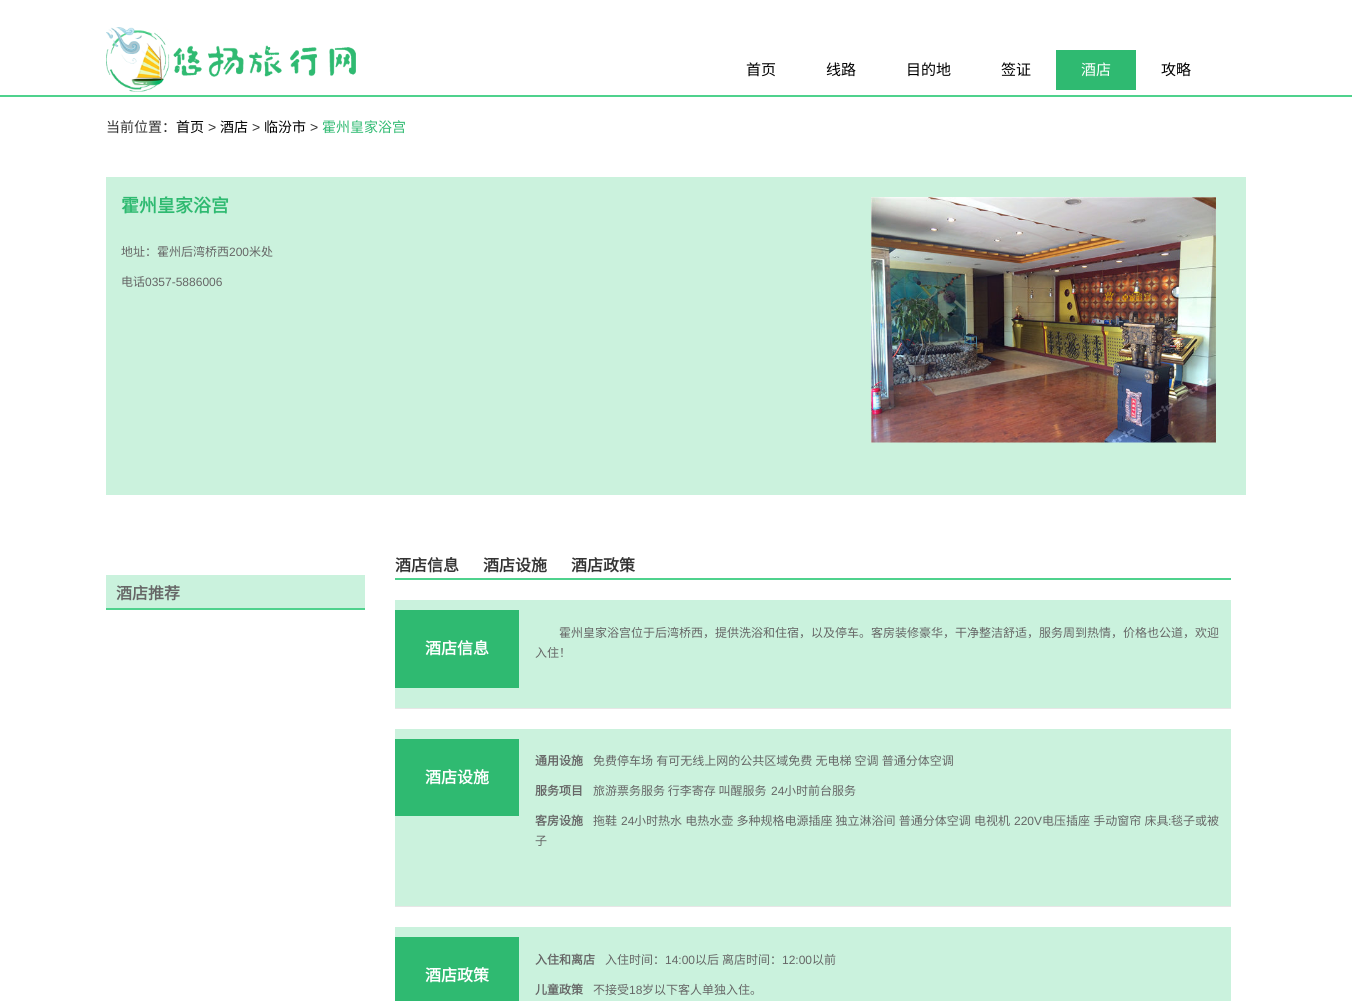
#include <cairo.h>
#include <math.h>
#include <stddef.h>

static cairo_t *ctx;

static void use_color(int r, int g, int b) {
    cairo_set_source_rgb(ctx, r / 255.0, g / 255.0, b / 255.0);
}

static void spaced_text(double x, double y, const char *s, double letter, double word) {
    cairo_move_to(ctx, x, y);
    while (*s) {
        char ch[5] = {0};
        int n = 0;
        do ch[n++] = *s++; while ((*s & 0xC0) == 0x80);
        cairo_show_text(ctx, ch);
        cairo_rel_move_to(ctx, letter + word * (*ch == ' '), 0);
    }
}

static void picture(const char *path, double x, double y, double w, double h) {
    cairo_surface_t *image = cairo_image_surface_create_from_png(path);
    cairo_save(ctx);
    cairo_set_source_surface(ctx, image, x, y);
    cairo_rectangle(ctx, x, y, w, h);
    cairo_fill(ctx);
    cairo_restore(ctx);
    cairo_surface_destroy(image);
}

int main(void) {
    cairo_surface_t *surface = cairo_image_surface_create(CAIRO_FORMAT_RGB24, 1352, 1001);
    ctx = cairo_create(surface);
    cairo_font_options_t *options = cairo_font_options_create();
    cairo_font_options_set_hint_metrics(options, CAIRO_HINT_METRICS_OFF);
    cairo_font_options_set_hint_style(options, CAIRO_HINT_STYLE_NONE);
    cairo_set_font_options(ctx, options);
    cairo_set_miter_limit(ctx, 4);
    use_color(255, 255, 255);
    cairo_paint(ctx);
    picture("img1.png", 106, 27, 250, 65);
    cairo_select_font_face(ctx, "Noto Sans CJK SC", CAIRO_FONT_SLANT_NORMAL, CAIRO_FONT_WEIGHT_NORMAL);
    cairo_set_font_size(ctx, 15);
    use_color(0, 0, 0);
    cairo_move_to(ctx, 746, 75);
    cairo_show_text(ctx, "首页");
    cairo_move_to(ctx, 826, 75);
    cairo_show_text(ctx, "线路");
    cairo_move_to(ctx, 906, 75);
    cairo_show_text(ctx, "目的地");
    cairo_move_to(ctx, 1001, 75);
    cairo_show_text(ctx, "签证");
    use_color(47, 186, 113);
    cairo_rectangle(ctx, 1056, 50, 80, 40);
    cairo_fill(ctx);
    use_color(255, 255, 255);
    cairo_move_to(ctx, 1081, 75);
    cairo_show_text(ctx, "酒店");
    use_color(0, 0, 0);
    cairo_move_to(ctx, 1161, 75);
    cairo_show_text(ctx, "攻略");
    use_color(79, 210, 141);
    cairo_rectangle(ctx, 0, 95, 1352, 2);
    cairo_fill(ctx);
    cairo_set_font_size(ctx, 14);
    use_color(51, 51, 51);
    cairo_move_to(ctx, 106, 132);
    cairo_show_text(ctx, "当前位置：");
    use_color(0, 0, 0);
    cairo_move_to(ctx, 176, 132);
    cairo_show_text(ctx, "首页");
    cairo_select_font_face(ctx, "Liberation Sans", CAIRO_FONT_SLANT_NORMAL, CAIRO_FONT_WEIGHT_NORMAL);
    use_color(51, 51, 51);
    cairo_move_to(ctx, 208, 132);
    cairo_show_text(ctx, ">");
    cairo_select_font_face(ctx, "Noto Sans CJK SC", CAIRO_FONT_SLANT_NORMAL, CAIRO_FONT_WEIGHT_NORMAL);
    use_color(0, 0, 0);
    cairo_move_to(ctx, 220, 132);
    cairo_show_text(ctx, "酒店");
    cairo_select_font_face(ctx, "Liberation Sans", CAIRO_FONT_SLANT_NORMAL, CAIRO_FONT_WEIGHT_NORMAL);
    use_color(51, 51, 51);
    cairo_move_to(ctx, 252, 132);
    cairo_show_text(ctx, ">");
    cairo_select_font_face(ctx, "Noto Sans CJK SC", CAIRO_FONT_SLANT_NORMAL, CAIRO_FONT_WEIGHT_NORMAL);
    use_color(0, 0, 0);
    cairo_move_to(ctx, 264, 132);
    cairo_show_text(ctx, "临汾市");
    cairo_select_font_face(ctx, "Liberation Sans", CAIRO_FONT_SLANT_NORMAL, CAIRO_FONT_WEIGHT_NORMAL);
    use_color(51, 51, 51);
    cairo_move_to(ctx, 310, 132);
    cairo_show_text(ctx, ">");
    cairo_select_font_face(ctx, "Noto Sans CJK SC", CAIRO_FONT_SLANT_NORMAL, CAIRO_FONT_WEIGHT_NORMAL);
    use_color(47, 186, 113);
    cairo_move_to(ctx, 322, 132);
    cairo_show_text(ctx, "霍州皇家浴宫");
    use_color(203, 242, 221);
    cairo_rectangle(ctx, 106, 177, 1140, 318);
    cairo_fill(ctx);
    cairo_select_font_face(ctx, "Noto Sans CJK SC", CAIRO_FONT_SLANT_NORMAL, CAIRO_FONT_WEIGHT_BOLD);
    cairo_set_font_size(ctx, 18);
    use_color(47, 186, 113);
    cairo_move_to(ctx, 121, 212);
    cairo_show_text(ctx, "霍州皇家浴宫");
    cairo_select_font_face(ctx, "Noto Sans CJK SC", CAIRO_FONT_SLANT_NORMAL, CAIRO_FONT_WEIGHT_NORMAL);
    cairo_set_font_size(ctx, 12);
    use_color(102, 102, 102);
    cairo_move_to(ctx, 121, 256);
    cairo_show_text(ctx, "地址：霍州后湾桥西");
    cairo_select_font_face(ctx, "Liberation Sans", CAIRO_FONT_SLANT_NORMAL, CAIRO_FONT_WEIGHT_NORMAL);
    cairo_move_to(ctx, 229, 256);
    cairo_show_text(ctx, "200");
    cairo_select_font_face(ctx, "Noto Sans CJK SC", CAIRO_FONT_SLANT_NORMAL, CAIRO_FONT_WEIGHT_NORMAL);
    cairo_move_to(ctx, 249, 256);
    cairo_show_text(ctx, "米处");
    cairo_move_to(ctx, 121, 286);
    cairo_show_text(ctx, "电话");
    cairo_select_font_face(ctx, "Liberation Sans", CAIRO_FONT_SLANT_NORMAL, CAIRO_FONT_WEIGHT_NORMAL);
    cairo_move_to(ctx, 145, 286);
    cairo_show_text(ctx, "0357-5886006");
    picture("img2.png", 871, 197, 345, 246);
    use_color(202, 242, 221);
    cairo_rectangle(ctx, 106, 575, 259, 33);
    cairo_fill(ctx);
    cairo_select_font_face(ctx, "Noto Sans CJK SC", CAIRO_FONT_SLANT_NORMAL, CAIRO_FONT_WEIGHT_BOLD);
    cairo_set_font_size(ctx, 16);
    use_color(102, 102, 102);
    cairo_move_to(ctx, 116, 599);
    cairo_show_text(ctx, "酒店推荐");
    use_color(79, 210, 141);
    cairo_rectangle(ctx, 106, 608, 259, 2);
    cairo_fill(ctx);
    cairo_rectangle(ctx, 395, 578, 836, 2);
    cairo_fill(ctx);
    use_color(51, 51, 51);
    cairo_move_to(ctx, 395, 571);
    cairo_show_text(ctx, "酒店信息");
    cairo_move_to(ctx, 483, 571);
    cairo_show_text(ctx, "酒店设施");
    cairo_move_to(ctx, 571, 571);
    cairo_show_text(ctx, "酒店政策");
    use_color(202, 242, 221);
    cairo_rectangle(ctx, 395, 600, 836, 108);
    cairo_fill(ctx);
    use_color(231, 230, 230);
    cairo_rectangle(ctx, 395, 708, 836, 1);
    cairo_fill(ctx);
    use_color(47, 186, 113);
    cairo_rectangle(ctx, 395, 610, 124, 78);
    cairo_fill(ctx);
    use_color(255, 255, 255);
    cairo_move_to(ctx, 425, 654);
    cairo_show_text(ctx, "酒店信息");
    cairo_select_font_face(ctx, "Noto Sans CJK SC", CAIRO_FONT_SLANT_NORMAL, CAIRO_FONT_WEIGHT_NORMAL);
    cairo_set_font_size(ctx, 12);
    use_color(102, 102, 102);
    cairo_move_to(ctx, 559, 637);
    cairo_show_text(ctx, "霍州皇家浴宫位于后湾桥西，提供洗浴和住宿，以及停车。客房装修豪华，干净整洁舒适，服务周到热情，价格也公道，欢迎");
    cairo_move_to(ctx, 535, 657);
    cairo_show_text(ctx, "入住！");
    use_color(203, 242, 221);
    cairo_rectangle(ctx, 395, 729, 836, 177);
    cairo_fill(ctx);
    use_color(231, 230, 230);
    cairo_rectangle(ctx, 395, 906, 836, 1);
    cairo_fill(ctx);
    use_color(47, 186, 113);
    cairo_rectangle(ctx, 395, 739, 124, 77);
    cairo_fill(ctx);
    cairo_select_font_face(ctx, "Noto Sans CJK SC", CAIRO_FONT_SLANT_NORMAL, CAIRO_FONT_WEIGHT_BOLD);
    cairo_set_font_size(ctx, 16);
    use_color(255, 255, 255);
    cairo_move_to(ctx, 425, 783);
    cairo_show_text(ctx, "酒店设施");
    cairo_set_font_size(ctx, 12);
    use_color(102, 102, 102);
    cairo_move_to(ctx, 535, 765);
    cairo_show_text(ctx, "通用设施");
    cairo_select_font_face(ctx, "Noto Sans CJK SC", CAIRO_FONT_SLANT_NORMAL, CAIRO_FONT_WEIGHT_NORMAL);
    spaced_text(593, 765, "免费停车场 有可无线上网的公共区域免费 无电梯 空调 普通分体空调", 0, 0.5);
    cairo_select_font_face(ctx, "Noto Sans CJK SC", CAIRO_FONT_SLANT_NORMAL, CAIRO_FONT_WEIGHT_BOLD);
    cairo_move_to(ctx, 535, 795);
    cairo_show_text(ctx, "服务项目");
    cairo_select_font_face(ctx, "Noto Sans CJK SC", CAIRO_FONT_SLANT_NORMAL, CAIRO_FONT_WEIGHT_NORMAL);
    cairo_move_to(ctx, 593, 795);
    cairo_show_text(ctx, "旅游票务服务 行李寄存 叫醒服务");
    cairo_select_font_face(ctx, "Liberation Sans", CAIRO_FONT_SLANT_NORMAL, CAIRO_FONT_WEIGHT_NORMAL);
    cairo_move_to(ctx, 771, 795);
    cairo_show_text(ctx, "24");
    cairo_select_font_face(ctx, "Noto Sans CJK SC", CAIRO_FONT_SLANT_NORMAL, CAIRO_FONT_WEIGHT_NORMAL);
    cairo_move_to(ctx, 784, 795);
    cairo_show_text(ctx, "小时前台服务");
    cairo_select_font_face(ctx, "Noto Sans CJK SC", CAIRO_FONT_SLANT_NORMAL, CAIRO_FONT_WEIGHT_BOLD);
    cairo_move_to(ctx, 535, 825);
    cairo_show_text(ctx, "客房设施");
    cairo_select_font_face(ctx, "Noto Sans CJK SC", CAIRO_FONT_SLANT_NORMAL, CAIRO_FONT_WEIGHT_NORMAL);
    cairo_move_to(ctx, 593, 825);
    cairo_show_text(ctx, "拖鞋");
    cairo_select_font_face(ctx, "Liberation Sans", CAIRO_FONT_SLANT_NORMAL, CAIRO_FONT_WEIGHT_NORMAL);
    cairo_move_to(ctx, 621, 825);
    cairo_show_text(ctx, "24");
    cairo_select_font_face(ctx, "Noto Sans CJK SC", CAIRO_FONT_SLANT_NORMAL, CAIRO_FONT_WEIGHT_NORMAL);
    spaced_text(634, 825, "小时热水 电热水壶 多种规格电源插座 独立淋浴间 普通分体空调 电视机", 0, 0.5);
    cairo_select_font_face(ctx, "Liberation Sans", CAIRO_FONT_SLANT_NORMAL, CAIRO_FONT_WEIGHT_NORMAL);
    cairo_move_to(ctx, 1014, 825);
    cairo_show_text(ctx, "220V");
    cairo_select_font_face(ctx, "Noto Sans CJK SC", CAIRO_FONT_SLANT_NORMAL, CAIRO_FONT_WEIGHT_NORMAL);
    spaced_text(1042, 825, "电压插座 手动窗帘 床具", 0, 0.5);
    cairo_select_font_face(ctx, "Liberation Sans", CAIRO_FONT_SLANT_NORMAL, CAIRO_FONT_WEIGHT_NORMAL);
    cairo_move_to(ctx, 1168, 825);
    cairo_show_text(ctx, ":");
    cairo_select_font_face(ctx, "Noto Sans CJK SC", CAIRO_FONT_SLANT_NORMAL, CAIRO_FONT_WEIGHT_NORMAL);
    cairo_move_to(ctx, 1171, 825);
    cairo_show_text(ctx, "毯子或被");
    cairo_move_to(ctx, 535, 845);
    cairo_show_text(ctx, "子");
    use_color(202, 242, 221);
    cairo_rectangle(ctx, 395, 927, 836, 74);
    cairo_fill(ctx);
    use_color(47, 186, 113);
    cairo_rectangle(ctx, 395, 937, 124, 64);
    cairo_fill(ctx);
    cairo_select_font_face(ctx, "Noto Sans CJK SC", CAIRO_FONT_SLANT_NORMAL, CAIRO_FONT_WEIGHT_BOLD);
    cairo_set_font_size(ctx, 16);
    use_color(255, 255, 255);
    cairo_move_to(ctx, 425, 981);
    cairo_show_text(ctx, "酒店政策");
    cairo_set_font_size(ctx, 12);
    use_color(102, 102, 102);
    cairo_move_to(ctx, 535, 964);
    cairo_show_text(ctx, "入住和离店");
    cairo_select_font_face(ctx, "Noto Sans CJK SC", CAIRO_FONT_SLANT_NORMAL, CAIRO_FONT_WEIGHT_NORMAL);
    cairo_move_to(ctx, 605, 964);
    cairo_show_text(ctx, "入住时间：");
    cairo_select_font_face(ctx, "Liberation Sans", CAIRO_FONT_SLANT_NORMAL, CAIRO_FONT_WEIGHT_NORMAL);
    cairo_move_to(ctx, 665, 964);
    cairo_show_text(ctx, "14:00");
    cairo_select_font_face(ctx, "Noto Sans CJK SC", CAIRO_FONT_SLANT_NORMAL, CAIRO_FONT_WEIGHT_NORMAL);
    cairo_move_to(ctx, 695, 964);
    cairo_show_text(ctx, "以后");
    cairo_move_to(ctx, 722, 964);
    cairo_show_text(ctx, "离店时间：");
    cairo_select_font_face(ctx, "Liberation Sans", CAIRO_FONT_SLANT_NORMAL, CAIRO_FONT_WEIGHT_NORMAL);
    cairo_move_to(ctx, 782, 964);
    cairo_show_text(ctx, "12:00");
    cairo_select_font_face(ctx, "Noto Sans CJK SC", CAIRO_FONT_SLANT_NORMAL, CAIRO_FONT_WEIGHT_NORMAL);
    cairo_move_to(ctx, 812, 964);
    cairo_show_text(ctx, "以前");
    cairo_select_font_face(ctx, "Noto Sans CJK SC", CAIRO_FONT_SLANT_NORMAL, CAIRO_FONT_WEIGHT_BOLD);
    cairo_move_to(ctx, 535, 994);
    cairo_show_text(ctx, "儿童政策");
    cairo_select_font_face(ctx, "Noto Sans CJK SC", CAIRO_FONT_SLANT_NORMAL, CAIRO_FONT_WEIGHT_NORMAL);
    cairo_move_to(ctx, 593, 994);
    cairo_show_text(ctx, "不接受");
    cairo_select_font_face(ctx, "Liberation Sans", CAIRO_FONT_SLANT_NORMAL, CAIRO_FONT_WEIGHT_NORMAL);
    cairo_move_to(ctx, 629, 994);
    cairo_show_text(ctx, "18");
    cairo_select_font_face(ctx, "Noto Sans CJK SC", CAIRO_FONT_SLANT_NORMAL, CAIRO_FONT_WEIGHT_NORMAL);
    cairo_move_to(ctx, 642, 994);
    cairo_show_text(ctx, "岁以下客人单独入住。");
    cairo_surface_write_to_png(surface, "result.png");
    cairo_font_options_destroy(options);
    cairo_destroy(ctx);
    cairo_surface_destroy(surface);
    return 0;
}
